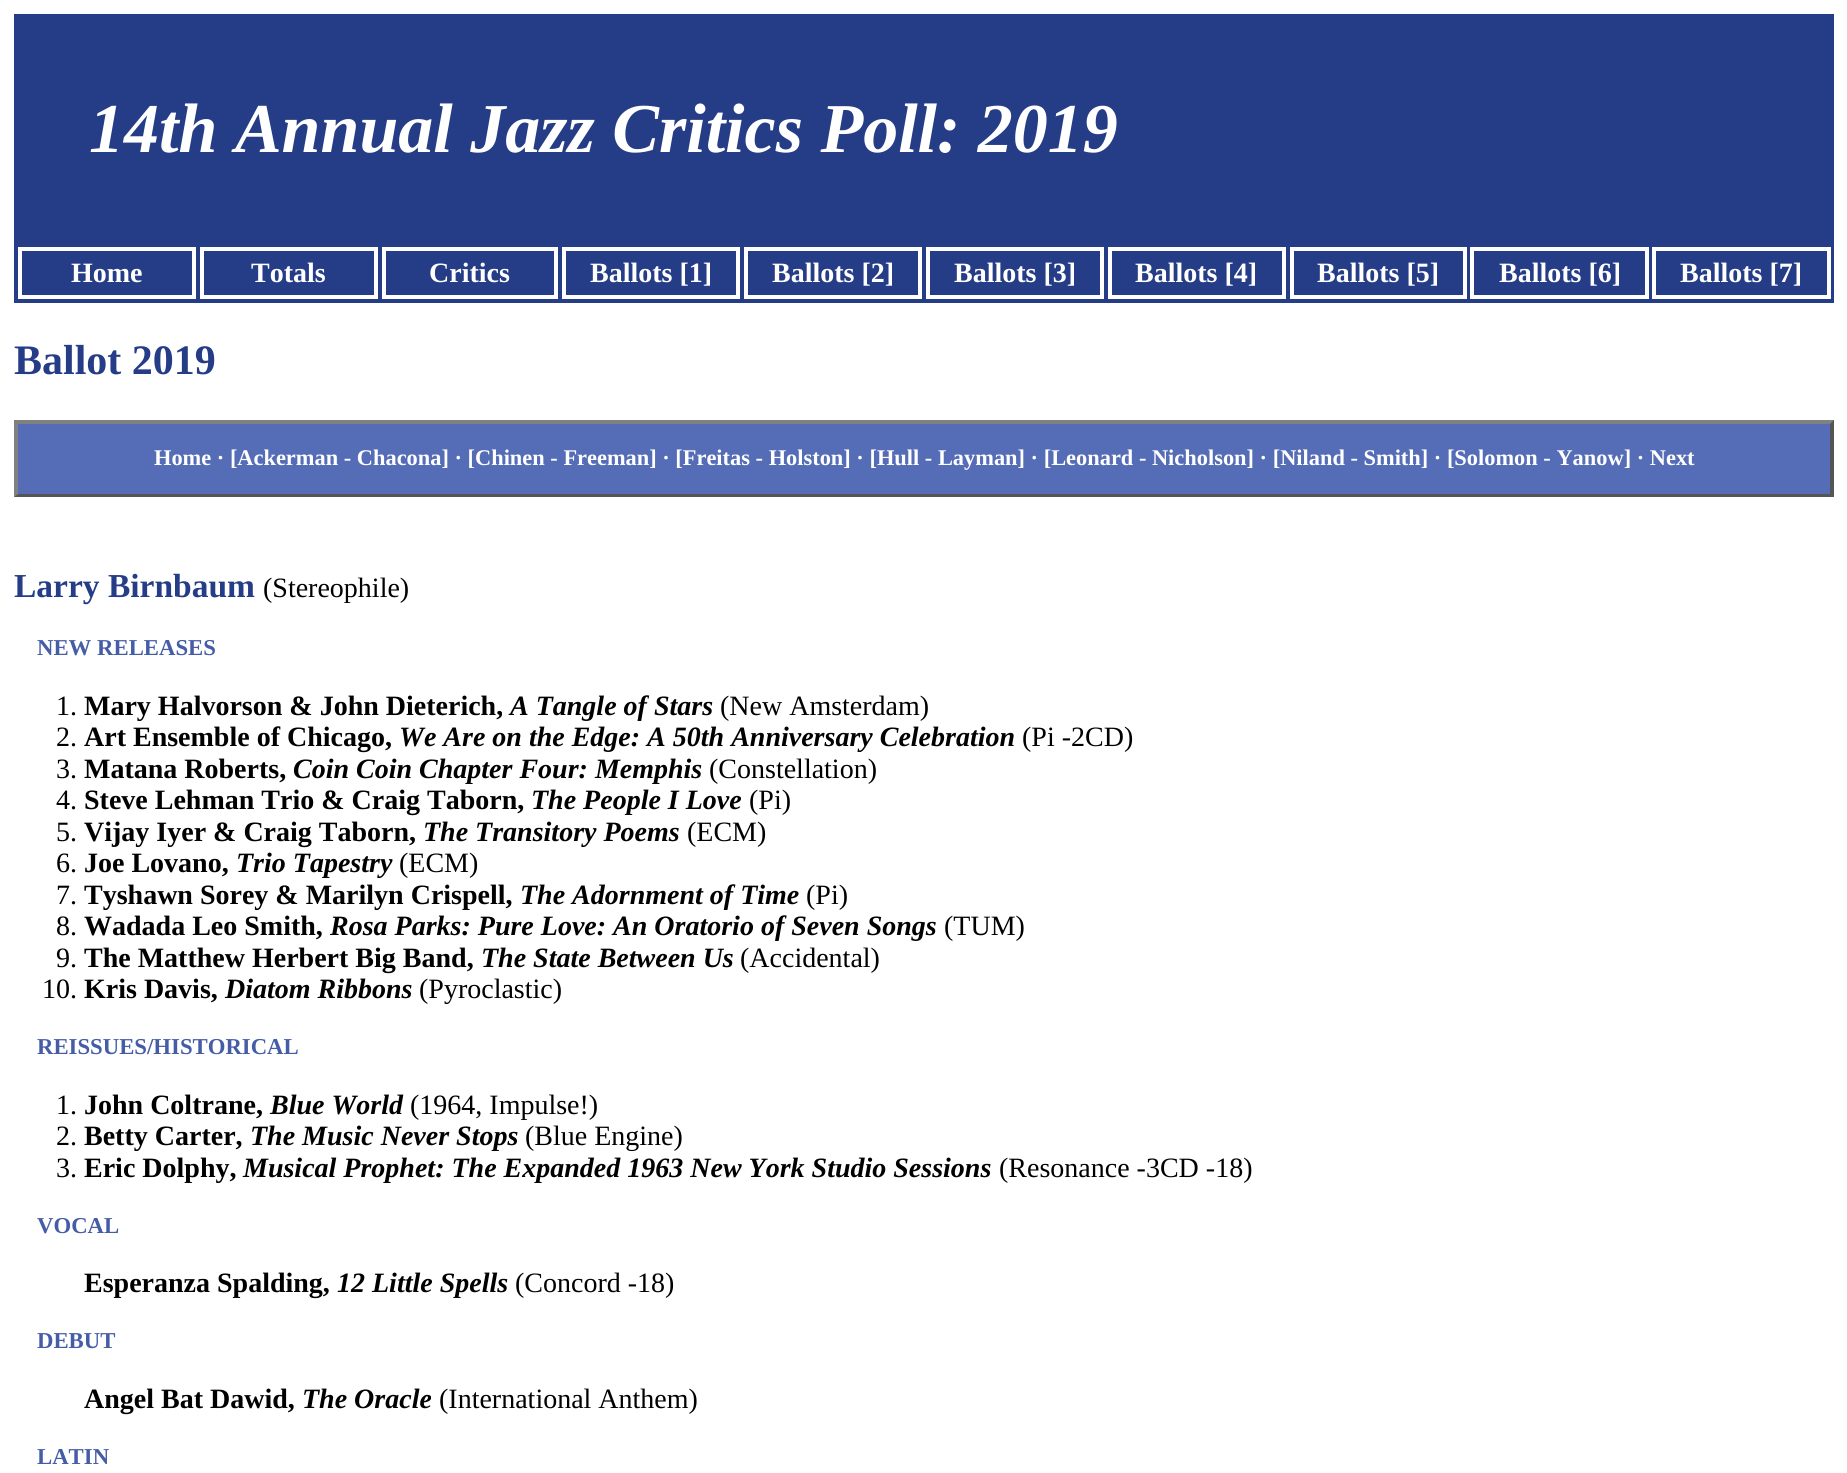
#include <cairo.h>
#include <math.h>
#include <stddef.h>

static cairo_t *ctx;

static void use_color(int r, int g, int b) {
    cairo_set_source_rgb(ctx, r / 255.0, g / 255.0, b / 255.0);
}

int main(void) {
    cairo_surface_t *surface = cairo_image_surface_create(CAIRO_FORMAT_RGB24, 1847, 1473);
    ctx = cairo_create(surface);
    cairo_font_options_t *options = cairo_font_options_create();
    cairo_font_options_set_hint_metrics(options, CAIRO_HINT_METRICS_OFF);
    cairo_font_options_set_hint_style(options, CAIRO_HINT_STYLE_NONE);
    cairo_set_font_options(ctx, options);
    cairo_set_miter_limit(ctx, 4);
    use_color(255, 255, 255);
    cairo_paint(ctx);
    use_color(37, 60, 135);
    cairo_rectangle(ctx, 14, 14, 1820, 289);
    cairo_fill(ctx);
    cairo_select_font_face(ctx, "Liberation Serif", CAIRO_FONT_SLANT_ITALIC, CAIRO_FONT_WEIGHT_BOLD);
    cairo_set_font_size(ctx, 70);
    use_color(255, 255, 255);
    cairo_move_to(ctx, 89, 152);
    cairo_show_text(ctx, "14th Annual Jazz Critics Poll: 2019");
    cairo_rectangle(ctx, 20, 249, 174, 48);
    cairo_set_line_width(ctx, 4);
    cairo_stroke(ctx);
    cairo_select_font_face(ctx, "Liberation Serif", CAIRO_FONT_SLANT_NORMAL, CAIRO_FONT_WEIGHT_BOLD);
    cairo_set_font_size(ctx, 28);
    cairo_move_to(ctx, 71, 282);
    cairo_show_text(ctx, "Home");
    cairo_rectangle(ctx, 202, 249, 174, 48);
    cairo_stroke(ctx);
    cairo_move_to(ctx, 251, 282);
    cairo_show_text(ctx, "Totals");
    cairo_rectangle(ctx, 384, 249, 172, 48);
    cairo_stroke(ctx);
    cairo_move_to(ctx, 429, 282);
    cairo_show_text(ctx, "Critics");
    cairo_rectangle(ctx, 564, 249, 174, 48);
    cairo_stroke(ctx);
    cairo_move_to(ctx, 590, 282);
    cairo_show_text(ctx, "Ballots [1]");
    cairo_rectangle(ctx, 746, 249, 174, 48);
    cairo_stroke(ctx);
    cairo_move_to(ctx, 772, 282);
    cairo_show_text(ctx, "Ballots [2]");
    cairo_rectangle(ctx, 928, 249, 174, 48);
    cairo_stroke(ctx);
    cairo_move_to(ctx, 954, 282);
    cairo_show_text(ctx, "Ballots [3]");
    cairo_rectangle(ctx, 1110, 249, 174, 48);
    cairo_stroke(ctx);
    cairo_move_to(ctx, 1135, 282);
    cairo_show_text(ctx, "Ballots [4]");
    cairo_rectangle(ctx, 1292, 249, 173, 48);
    cairo_stroke(ctx);
    cairo_move_to(ctx, 1317, 282);
    cairo_show_text(ctx, "Ballots [5]");
    cairo_rectangle(ctx, 1472, 249, 175, 48);
    cairo_stroke(ctx);
    cairo_move_to(ctx, 1499, 282);
    cairo_show_text(ctx, "Ballots [6]");
    cairo_rectangle(ctx, 1654, 249, 175, 48);
    cairo_stroke(ctx);
    cairo_move_to(ctx, 1680, 282);
    cairo_show_text(ctx, "Ballots [7]");
    cairo_set_font_size(ctx, 42);
    use_color(37, 60, 135);
    cairo_move_to(ctx, 14, 374);
    cairo_show_text(ctx, "Ballot 2019");
    use_color(85, 108, 183);
    cairo_rectangle(ctx, 14, 420, 1820, 77);
    cairo_fill(ctx);
    use_color(128, 128, 128);
    cairo_new_path(ctx);
    cairo_move_to(ctx, 14, 420);
    cairo_line_to(ctx, 1834, 420);
    cairo_line_to(ctx, 1830, 424);
    cairo_line_to(ctx, 18, 424);
    cairo_close_path(ctx);
    cairo_fill(ctx);
    use_color(85, 85, 85);
    cairo_new_path(ctx);
    cairo_move_to(ctx, 1834, 420);
    cairo_line_to(ctx, 1834, 497);
    cairo_line_to(ctx, 1830, 494);
    cairo_line_to(ctx, 1830, 424);
    cairo_close_path(ctx);
    cairo_fill(ctx);
    cairo_new_path(ctx);
    cairo_move_to(ctx, 1834, 497);
    cairo_line_to(ctx, 14, 497);
    cairo_line_to(ctx, 18, 494);
    cairo_line_to(ctx, 1830, 494);
    cairo_close_path(ctx);
    cairo_fill(ctx);
    use_color(128, 128, 128);
    cairo_new_path(ctx);
    cairo_move_to(ctx, 14, 497);
    cairo_line_to(ctx, 14, 420);
    cairo_line_to(ctx, 18, 424);
    cairo_line_to(ctx, 18, 494);
    cairo_close_path(ctx);
    cairo_fill(ctx);
    cairo_set_font_size(ctx, 22.4);
    use_color(255, 255, 255);
    cairo_move_to(ctx, 154, 465);
    cairo_show_text(ctx, "Home · [Ackerman - Chacona] · [Chinen - Freeman] · [Freitas - Holston] · [Hull - Layman] · [Leonard - Nicholson] · [Niland - Smith] · [Solomon - Yanow] · Next");
    cairo_set_font_size(ctx, 33.5);
    use_color(37, 60, 135);
    cairo_move_to(ctx, 14, 597);
    cairo_show_text(ctx, "Larry Birnbaum");
    cairo_select_font_face(ctx, "Liberation Serif", CAIRO_FONT_SLANT_NORMAL, CAIRO_FONT_WEIGHT_NORMAL);
    cairo_set_font_size(ctx, 28);
    use_color(0, 0, 0);
    cairo_move_to(ctx, 263, 597);
    cairo_show_text(ctx, "(Stereophile)");
    cairo_select_font_face(ctx, "Liberation Serif", CAIRO_FONT_SLANT_NORMAL, CAIRO_FONT_WEIGHT_BOLD);
    cairo_set_font_size(ctx, 22.75);
    use_color(69, 92, 167);
    cairo_move_to(ctx, 37, 655);
    cairo_show_text(ctx, "NEW RELEASES");
    cairo_select_font_face(ctx, "Liberation Serif", CAIRO_FONT_SLANT_NORMAL, CAIRO_FONT_WEIGHT_NORMAL);
    cairo_set_font_size(ctx, 28);
    use_color(0, 0, 0);
    cairo_move_to(ctx, 56, 715);
    cairo_show_text(ctx, "1.");
    cairo_select_font_face(ctx, "Liberation Serif", CAIRO_FONT_SLANT_NORMAL, CAIRO_FONT_WEIGHT_BOLD);
    cairo_move_to(ctx, 84, 715);
    cairo_show_text(ctx, "Mary Halvorson & John Dieterich,");
    cairo_select_font_face(ctx, "Liberation Serif", CAIRO_FONT_SLANT_ITALIC, CAIRO_FONT_WEIGHT_BOLD);
    cairo_move_to(ctx, 510, 715);
    cairo_show_text(ctx, "A Tangle of Stars");
    cairo_select_font_face(ctx, "Liberation Serif", CAIRO_FONT_SLANT_NORMAL, CAIRO_FONT_WEIGHT_NORMAL);
    cairo_move_to(ctx, 720, 715);
    cairo_show_text(ctx, "(New Amsterdam)");
    cairo_move_to(ctx, 56, 746);
    cairo_show_text(ctx, "2.");
    cairo_select_font_face(ctx, "Liberation Serif", CAIRO_FONT_SLANT_NORMAL, CAIRO_FONT_WEIGHT_BOLD);
    cairo_move_to(ctx, 84, 746);
    cairo_show_text(ctx, "Art Ensemble of Chicago,");
    cairo_select_font_face(ctx, "Liberation Serif", CAIRO_FONT_SLANT_ITALIC, CAIRO_FONT_WEIGHT_BOLD);
    cairo_move_to(ctx, 399, 746);
    cairo_show_text(ctx, "We Are on the Edge: A 50th Anniversary Celebration");
    cairo_select_font_face(ctx, "Liberation Serif", CAIRO_FONT_SLANT_NORMAL, CAIRO_FONT_WEIGHT_NORMAL);
    cairo_move_to(ctx, 1022, 746);
    cairo_show_text(ctx, "(Pi -2CD)");
    cairo_move_to(ctx, 56, 778);
    cairo_show_text(ctx, "3.");
    cairo_select_font_face(ctx, "Liberation Serif", CAIRO_FONT_SLANT_NORMAL, CAIRO_FONT_WEIGHT_BOLD);
    cairo_move_to(ctx, 84, 778);
    cairo_show_text(ctx, "Matana Roberts,");
    cairo_select_font_face(ctx, "Liberation Serif", CAIRO_FONT_SLANT_ITALIC, CAIRO_FONT_WEIGHT_BOLD);
    cairo_move_to(ctx, 293, 778);
    cairo_show_text(ctx, "Coin Coin Chapter Four: Memphis");
    cairo_select_font_face(ctx, "Liberation Serif", CAIRO_FONT_SLANT_NORMAL, CAIRO_FONT_WEIGHT_NORMAL);
    cairo_move_to(ctx, 709, 778);
    cairo_show_text(ctx, "(Constellation)");
    cairo_move_to(ctx, 56, 809);
    cairo_show_text(ctx, "4.");
    cairo_select_font_face(ctx, "Liberation Serif", CAIRO_FONT_SLANT_NORMAL, CAIRO_FONT_WEIGHT_BOLD);
    cairo_move_to(ctx, 84, 809);
    cairo_show_text(ctx, "Steve Lehman Trio & Craig Taborn,");
    cairo_select_font_face(ctx, "Liberation Serif", CAIRO_FONT_SLANT_ITALIC, CAIRO_FONT_WEIGHT_BOLD);
    cairo_move_to(ctx, 531, 809);
    cairo_show_text(ctx, "The People I Love");
    cairo_select_font_face(ctx, "Liberation Serif", CAIRO_FONT_SLANT_NORMAL, CAIRO_FONT_WEIGHT_NORMAL);
    cairo_move_to(ctx, 749, 809);
    cairo_show_text(ctx, "(Pi)");
    cairo_move_to(ctx, 56, 841);
    cairo_show_text(ctx, "5.");
    cairo_select_font_face(ctx, "Liberation Serif", CAIRO_FONT_SLANT_NORMAL, CAIRO_FONT_WEIGHT_BOLD);
    cairo_move_to(ctx, 84, 841);
    cairo_show_text(ctx, "Vijay Iyer & Craig Taborn,");
    cairo_select_font_face(ctx, "Liberation Serif", CAIRO_FONT_SLANT_ITALIC, CAIRO_FONT_WEIGHT_BOLD);
    cairo_move_to(ctx, 423, 841);
    cairo_show_text(ctx, "The Transitory Poems");
    cairo_select_font_face(ctx, "Liberation Serif", CAIRO_FONT_SLANT_NORMAL, CAIRO_FONT_WEIGHT_NORMAL);
    cairo_move_to(ctx, 687, 841);
    cairo_show_text(ctx, "(ECM)");
    cairo_move_to(ctx, 56, 872);
    cairo_show_text(ctx, "6.");
    cairo_select_font_face(ctx, "Liberation Serif", CAIRO_FONT_SLANT_NORMAL, CAIRO_FONT_WEIGHT_BOLD);
    cairo_move_to(ctx, 84, 872);
    cairo_show_text(ctx, "Joe Lovano,");
    cairo_select_font_face(ctx, "Liberation Serif", CAIRO_FONT_SLANT_ITALIC, CAIRO_FONT_WEIGHT_BOLD);
    cairo_move_to(ctx, 236, 872);
    cairo_show_text(ctx, "Trio Tapestry");
    cairo_select_font_face(ctx, "Liberation Serif", CAIRO_FONT_SLANT_NORMAL, CAIRO_FONT_WEIGHT_NORMAL);
    cairo_move_to(ctx, 399, 872);
    cairo_show_text(ctx, "(ECM)");
    cairo_move_to(ctx, 56, 904);
    cairo_show_text(ctx, "7.");
    cairo_select_font_face(ctx, "Liberation Serif", CAIRO_FONT_SLANT_NORMAL, CAIRO_FONT_WEIGHT_BOLD);
    cairo_move_to(ctx, 84, 904);
    cairo_show_text(ctx, "Tyshawn Sorey & Marilyn Crispell,");
    cairo_select_font_face(ctx, "Liberation Serif", CAIRO_FONT_SLANT_ITALIC, CAIRO_FONT_WEIGHT_BOLD);
    cairo_move_to(ctx, 520, 904);
    cairo_show_text(ctx, "The Adornment of Time");
    cairo_select_font_face(ctx, "Liberation Serif", CAIRO_FONT_SLANT_NORMAL, CAIRO_FONT_WEIGHT_NORMAL);
    cairo_move_to(ctx, 806, 904);
    cairo_show_text(ctx, "(Pi)");
    cairo_move_to(ctx, 56, 935);
    cairo_show_text(ctx, "8.");
    cairo_select_font_face(ctx, "Liberation Serif", CAIRO_FONT_SLANT_NORMAL, CAIRO_FONT_WEIGHT_BOLD);
    cairo_move_to(ctx, 84, 935);
    cairo_show_text(ctx, "Wadada Leo Smith,");
    cairo_select_font_face(ctx, "Liberation Serif", CAIRO_FONT_SLANT_ITALIC, CAIRO_FONT_WEIGHT_BOLD);
    cairo_move_to(ctx, 330, 935);
    cairo_show_text(ctx, "Rosa Parks: Pure Love: An Oratorio of Seven Songs");
    cairo_select_font_face(ctx, "Liberation Serif", CAIRO_FONT_SLANT_NORMAL, CAIRO_FONT_WEIGHT_NORMAL);
    cairo_move_to(ctx, 944, 935);
    cairo_show_text(ctx, "(TUM)");
    cairo_move_to(ctx, 56, 967);
    cairo_show_text(ctx, "9.");
    cairo_select_font_face(ctx, "Liberation Serif", CAIRO_FONT_SLANT_NORMAL, CAIRO_FONT_WEIGHT_BOLD);
    cairo_move_to(ctx, 84, 967);
    cairo_show_text(ctx, "The Matthew Herbert Big Band,");
    cairo_select_font_face(ctx, "Liberation Serif", CAIRO_FONT_SLANT_ITALIC, CAIRO_FONT_WEIGHT_BOLD);
    cairo_move_to(ctx, 481, 967);
    cairo_show_text(ctx, "The State Between Us");
    cairo_select_font_face(ctx, "Liberation Serif", CAIRO_FONT_SLANT_NORMAL, CAIRO_FONT_WEIGHT_NORMAL);
    cairo_move_to(ctx, 740, 967);
    cairo_show_text(ctx, "(Accidental)");
    cairo_move_to(ctx, 42, 998);
    cairo_show_text(ctx, "10.");
    cairo_select_font_face(ctx, "Liberation Serif", CAIRO_FONT_SLANT_NORMAL, CAIRO_FONT_WEIGHT_BOLD);
    cairo_move_to(ctx, 84, 998);
    cairo_show_text(ctx, "Kris Davis,");
    cairo_select_font_face(ctx, "Liberation Serif", CAIRO_FONT_SLANT_ITALIC, CAIRO_FONT_WEIGHT_BOLD);
    cairo_move_to(ctx, 225, 998);
    cairo_show_text(ctx, "Diatom Ribbons");
    cairo_select_font_face(ctx, "Liberation Serif", CAIRO_FONT_SLANT_NORMAL, CAIRO_FONT_WEIGHT_NORMAL);
    cairo_move_to(ctx, 419, 998);
    cairo_show_text(ctx, "(Pyroclastic)");
    cairo_select_font_face(ctx, "Liberation Serif", CAIRO_FONT_SLANT_NORMAL, CAIRO_FONT_WEIGHT_BOLD);
    cairo_set_font_size(ctx, 22.75);
    use_color(69, 92, 167);
    cairo_move_to(ctx, 37, 1054);
    cairo_show_text(ctx, "REISSUES/HISTORICAL");
    cairo_select_font_face(ctx, "Liberation Serif", CAIRO_FONT_SLANT_NORMAL, CAIRO_FONT_WEIGHT_NORMAL);
    cairo_set_font_size(ctx, 28);
    use_color(0, 0, 0);
    cairo_move_to(ctx, 56, 1114);
    cairo_show_text(ctx, "1.");
    cairo_select_font_face(ctx, "Liberation Serif", CAIRO_FONT_SLANT_NORMAL, CAIRO_FONT_WEIGHT_BOLD);
    cairo_move_to(ctx, 84, 1114);
    cairo_show_text(ctx, "John Coltrane,");
    cairo_select_font_face(ctx, "Liberation Serif", CAIRO_FONT_SLANT_ITALIC, CAIRO_FONT_WEIGHT_BOLD);
    cairo_move_to(ctx, 270, 1114);
    cairo_show_text(ctx, "Blue World");
    cairo_select_font_face(ctx, "Liberation Serif", CAIRO_FONT_SLANT_NORMAL, CAIRO_FONT_WEIGHT_NORMAL);
    cairo_move_to(ctx, 410, 1114);
    cairo_show_text(ctx, "(1964, Impulse!)");
    cairo_move_to(ctx, 56, 1145);
    cairo_show_text(ctx, "2.");
    cairo_select_font_face(ctx, "Liberation Serif", CAIRO_FONT_SLANT_NORMAL, CAIRO_FONT_WEIGHT_BOLD);
    cairo_move_to(ctx, 84, 1145);
    cairo_show_text(ctx, "Betty Carter,");
    cairo_select_font_face(ctx, "Liberation Serif", CAIRO_FONT_SLANT_ITALIC, CAIRO_FONT_WEIGHT_BOLD);
    cairo_move_to(ctx, 250, 1145);
    cairo_show_text(ctx, "The Music Never Stops");
    cairo_select_font_face(ctx, "Liberation Serif", CAIRO_FONT_SLANT_NORMAL, CAIRO_FONT_WEIGHT_NORMAL);
    cairo_move_to(ctx, 525, 1145);
    cairo_show_text(ctx, "(Blue Engine)");
    cairo_move_to(ctx, 56, 1177);
    cairo_show_text(ctx, "3.");
    cairo_select_font_face(ctx, "Liberation Serif", CAIRO_FONT_SLANT_NORMAL, CAIRO_FONT_WEIGHT_BOLD);
    cairo_move_to(ctx, 84, 1177);
    cairo_show_text(ctx, "Eric Dolphy,");
    cairo_select_font_face(ctx, "Liberation Serif", CAIRO_FONT_SLANT_ITALIC, CAIRO_FONT_WEIGHT_BOLD);
    cairo_move_to(ctx, 243, 1177);
    cairo_show_text(ctx, "Musical Prophet: The Expanded 1963 New York Studio Sessions");
    cairo_select_font_face(ctx, "Liberation Serif", CAIRO_FONT_SLANT_NORMAL, CAIRO_FONT_WEIGHT_NORMAL);
    cairo_move_to(ctx, 999, 1177);
    cairo_show_text(ctx, "(Resonance -3CD -18)");
    cairo_select_font_face(ctx, "Liberation Serif", CAIRO_FONT_SLANT_NORMAL, CAIRO_FONT_WEIGHT_BOLD);
    cairo_set_font_size(ctx, 22.75);
    use_color(69, 92, 167);
    cairo_move_to(ctx, 37, 1233);
    cairo_show_text(ctx, "VOCAL");
    cairo_set_font_size(ctx, 28);
    use_color(0, 0, 0);
    cairo_move_to(ctx, 84, 1292);
    cairo_show_text(ctx, "Esperanza Spalding,");
    cairo_select_font_face(ctx, "Liberation Serif", CAIRO_FONT_SLANT_ITALIC, CAIRO_FONT_WEIGHT_BOLD);
    cairo_move_to(ctx, 337, 1292);
    cairo_show_text(ctx, "12 Little Spells");
    cairo_select_font_face(ctx, "Liberation Serif", CAIRO_FONT_SLANT_NORMAL, CAIRO_FONT_WEIGHT_NORMAL);
    cairo_move_to(ctx, 515, 1292);
    cairo_show_text(ctx, "(Concord -18)");
    cairo_select_font_face(ctx, "Liberation Serif", CAIRO_FONT_SLANT_NORMAL, CAIRO_FONT_WEIGHT_BOLD);
    cairo_set_font_size(ctx, 22.75);
    use_color(69, 92, 167);
    cairo_move_to(ctx, 37, 1348);
    cairo_show_text(ctx, "DEBUT");
    cairo_set_font_size(ctx, 28);
    use_color(0, 0, 0);
    cairo_move_to(ctx, 84, 1408);
    cairo_show_text(ctx, "Angel Bat Dawid,");
    cairo_select_font_face(ctx, "Liberation Serif", CAIRO_FONT_SLANT_ITALIC, CAIRO_FONT_WEIGHT_BOLD);
    cairo_move_to(ctx, 302, 1408);
    cairo_show_text(ctx, "The Oracle");
    cairo_select_font_face(ctx, "Liberation Serif", CAIRO_FONT_SLANT_NORMAL, CAIRO_FONT_WEIGHT_NORMAL);
    cairo_move_to(ctx, 439, 1408);
    cairo_show_text(ctx, "(International Anthem)");
    cairo_select_font_face(ctx, "Liberation Serif", CAIRO_FONT_SLANT_NORMAL, CAIRO_FONT_WEIGHT_BOLD);
    cairo_set_font_size(ctx, 22.75);
    use_color(69, 92, 167);
    cairo_move_to(ctx, 37, 1464);
    cairo_show_text(ctx, "LATIN");
    cairo_surface_write_to_png(surface, "result.png");
    cairo_font_options_destroy(options);
    cairo_destroy(ctx);
    cairo_surface_destroy(surface);
    return 0;
}
